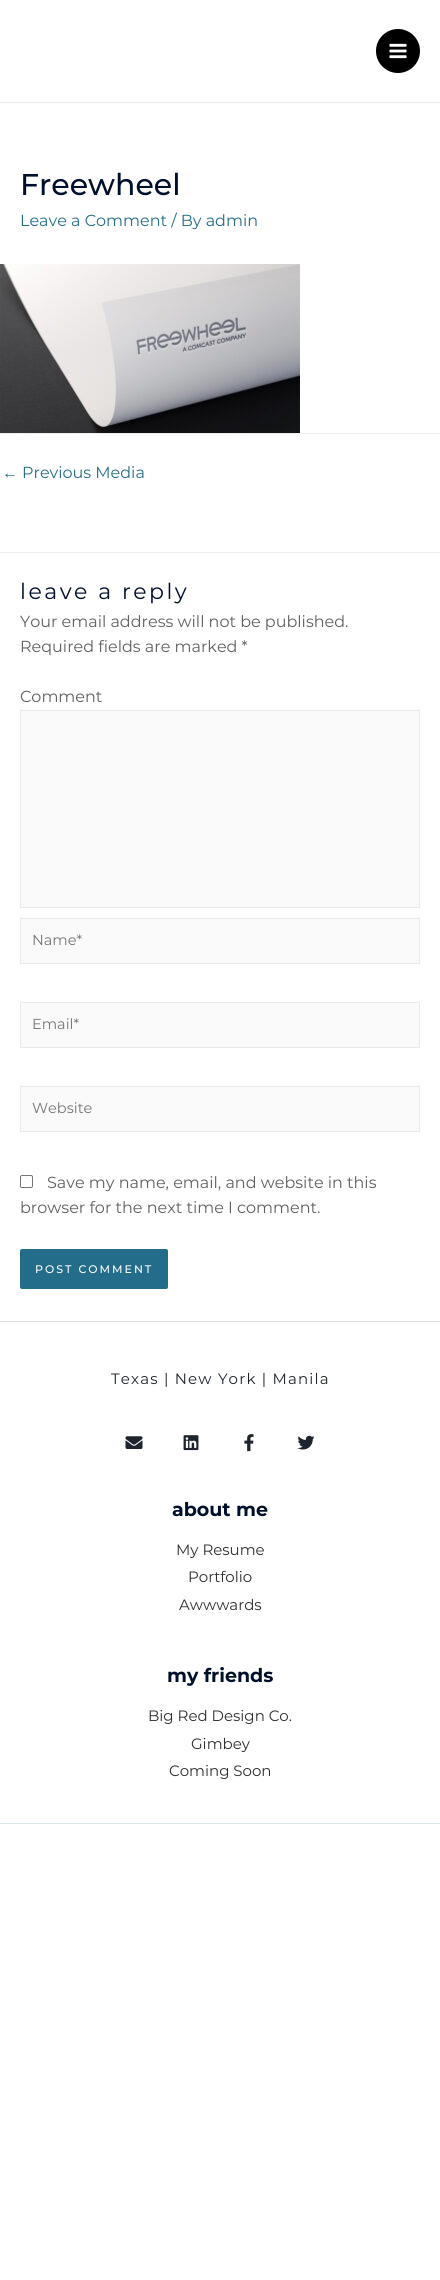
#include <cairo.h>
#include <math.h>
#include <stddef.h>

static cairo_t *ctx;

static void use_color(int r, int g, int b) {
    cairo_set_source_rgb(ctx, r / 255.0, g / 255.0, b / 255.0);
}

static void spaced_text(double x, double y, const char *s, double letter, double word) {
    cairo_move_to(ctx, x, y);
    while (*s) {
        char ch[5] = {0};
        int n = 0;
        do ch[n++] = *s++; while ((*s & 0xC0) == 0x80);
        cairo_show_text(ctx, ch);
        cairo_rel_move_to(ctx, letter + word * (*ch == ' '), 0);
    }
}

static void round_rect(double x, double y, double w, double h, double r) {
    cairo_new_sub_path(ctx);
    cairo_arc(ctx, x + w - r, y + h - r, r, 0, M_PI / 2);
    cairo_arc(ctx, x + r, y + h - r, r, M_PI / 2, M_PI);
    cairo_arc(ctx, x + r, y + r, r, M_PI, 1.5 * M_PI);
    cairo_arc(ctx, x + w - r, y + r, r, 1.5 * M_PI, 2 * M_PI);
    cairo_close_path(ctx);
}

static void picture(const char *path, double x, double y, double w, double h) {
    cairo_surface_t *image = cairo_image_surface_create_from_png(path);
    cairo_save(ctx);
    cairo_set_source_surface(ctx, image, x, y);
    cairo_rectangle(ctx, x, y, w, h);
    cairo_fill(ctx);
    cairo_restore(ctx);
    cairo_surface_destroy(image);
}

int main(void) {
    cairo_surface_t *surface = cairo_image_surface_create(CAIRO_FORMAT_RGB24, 440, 2280);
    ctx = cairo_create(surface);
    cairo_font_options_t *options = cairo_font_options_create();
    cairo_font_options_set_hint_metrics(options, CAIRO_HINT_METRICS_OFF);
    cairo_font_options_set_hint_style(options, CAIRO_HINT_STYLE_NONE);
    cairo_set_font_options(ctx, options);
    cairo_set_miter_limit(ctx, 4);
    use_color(255, 255, 255);
    cairo_paint(ctx);
    use_color(234, 234, 234);
    cairo_rectangle(ctx, 0, 102, 440, 1);
    cairo_fill(ctx);
    use_color(0, 0, 0);
    cairo_arc(ctx, 398, 51, 22, 0, 2 * M_PI);
    cairo_fill(ctx);
    picture("img1.png", 389, 43, 18, 16);
    cairo_select_font_face(ctx, "Montserrat Medium", CAIRO_FONT_SLANT_NORMAL, CAIRO_FONT_WEIGHT_NORMAL);
    cairo_set_font_size(ctx, 30);
    use_color(0, 15, 43);
    cairo_move_to(ctx, 20, 195);
    cairo_show_text(ctx, "Freewheel");
    cairo_select_font_face(ctx, "Montserrat", CAIRO_FONT_SLANT_NORMAL, CAIRO_FONT_WEIGHT_NORMAL);
    cairo_set_font_size(ctx, 16);
    use_color(36, 109, 138);
    cairo_move_to(ctx, 20, 226);
    cairo_show_text(ctx, "Leave a Comment / By admin");
    picture("img2.png", 0, 264, 300, 169);
    use_color(238, 238, 238);
    cairo_rectangle(ctx, 0, 433, 440, 1);
    cairo_fill(ctx);
    cairo_select_font_face(ctx, "Liberation Sans", CAIRO_FONT_SLANT_NORMAL, CAIRO_FONT_WEIGHT_NORMAL);
    use_color(36, 109, 138);
    cairo_move_to(ctx, 2, 478);
    cairo_show_text(ctx, "←");
    cairo_select_font_face(ctx, "Montserrat", CAIRO_FONT_SLANT_NORMAL, CAIRO_FONT_WEIGHT_NORMAL);
    cairo_move_to(ctx, 22, 478);
    cairo_show_text(ctx, "Previous Media");
    use_color(238, 238, 238);
    cairo_rectangle(ctx, 0, 552, 440, 1);
    cairo_fill(ctx);
    cairo_set_font_size(ctx, 22);
    use_color(0, 15, 43);
    spaced_text(20, 599, "leave a reply", 2.5, 0);
    cairo_set_font_size(ctx, 16);
    use_color(98, 95, 95);
    cairo_move_to(ctx, 20, 627);
    cairo_show_text(ctx, "Your email address will not be published.");
    cairo_move_to(ctx, 20, 652);
    cairo_show_text(ctx, "Required fields are marked *");
    cairo_move_to(ctx, 20, 702);
    cairo_show_text(ctx, "Comment");
    use_color(250, 250, 250);
    cairo_rectangle(ctx, 20.5, 710.5, 399, 197);
    cairo_fill_preserve(ctx);
    use_color(234, 234, 234);
    cairo_set_line_width(ctx, 1);
    cairo_stroke(ctx);
    use_color(250, 250, 250);
    cairo_rectangle(ctx, 20.5, 918.5, 399, 45);
    cairo_fill_preserve(ctx);
    use_color(234, 234, 234);
    cairo_stroke(ctx);
    cairo_set_font_size(ctx, 14.5);
    use_color(117, 117, 117);
    cairo_move_to(ctx, 32, 945);
    cairo_show_text(ctx, "Name*");
    use_color(250, 250, 250);
    cairo_rectangle(ctx, 20.5, 1002.5, 399, 45);
    cairo_fill_preserve(ctx);
    use_color(234, 234, 234);
    cairo_stroke(ctx);
    use_color(117, 117, 117);
    cairo_move_to(ctx, 32, 1029);
    cairo_show_text(ctx, "Email*");
    use_color(250, 250, 250);
    cairo_rectangle(ctx, 20.5, 1086.5, 399, 45);
    cairo_fill_preserve(ctx);
    use_color(234, 234, 234);
    cairo_stroke(ctx);
    use_color(117, 117, 117);
    cairo_move_to(ctx, 32, 1113);
    cairo_show_text(ctx, "Website");
    round_rect(20.5, 1175.5, 12, 12, 1.5);
    use_color(118, 118, 118);
    cairo_stroke(ctx);
    cairo_set_font_size(ctx, 16);
    use_color(98, 95, 95);
    cairo_move_to(ctx, 47, 1188);
    cairo_show_text(ctx, "Save my name, email, and website in this");
    cairo_move_to(ctx, 20, 1213);
    cairo_show_text(ctx, "browser for the next time I comment.");
    use_color(36, 109, 138);
    round_rect(20, 1249, 148, 40, 2);
    cairo_fill(ctx);
    cairo_select_font_face(ctx, "Montserrat Medium", CAIRO_FONT_SLANT_NORMAL, CAIRO_FONT_WEIGHT_NORMAL);
    cairo_set_font_size(ctx, 11);
    use_color(255, 255, 255);
    spaced_text(35, 1273, "POST COMMENT", 2, 0);
    use_color(224, 224, 224);
    cairo_rectangle(ctx, 0, 1321, 440, 1);
    cairo_fill(ctx);
    cairo_select_font_face(ctx, "Montserrat", CAIRO_FONT_SLANT_NORMAL, CAIRO_FONT_WEIGHT_NORMAL);
    cairo_set_font_size(ctx, 15);
    use_color(30, 36, 45);
    spaced_text(111, 1384, "Texas | New York | Manila", 1.2, 0);
    picture("img3.png", 125, 1436, 18, 13);
    picture("img4.png", 183, 1435, 16, 16);
    picture("img5.png", 244, 1434, 10, 18);
    picture("img6.png", 297, 1435, 18, 15);
    cairo_select_font_face(ctx, "Montserrat", CAIRO_FONT_SLANT_NORMAL, CAIRO_FONT_WEIGHT_BOLD);
    cairo_set_font_size(ctx, 19);
    use_color(0, 15, 43);
    cairo_move_to(ctx, 172, 1516);
    cairo_show_text(ctx, "about me");
    cairo_select_font_face(ctx, "Montserrat", CAIRO_FONT_SLANT_NORMAL, CAIRO_FONT_WEIGHT_NORMAL);
    cairo_set_font_size(ctx, 15);
    use_color(47, 47, 47);
    cairo_move_to(ctx, 176, 1555);
    cairo_show_text(ctx, "My Resume");
    cairo_move_to(ctx, 188, 1582);
    cairo_show_text(ctx, "Portfolio");
    cairo_move_to(ctx, 179, 1610);
    cairo_show_text(ctx, "Awwwards");
    cairo_select_font_face(ctx, "Montserrat", CAIRO_FONT_SLANT_NORMAL, CAIRO_FONT_WEIGHT_BOLD);
    cairo_set_font_size(ctx, 19);
    use_color(0, 15, 43);
    cairo_move_to(ctx, 167, 1682);
    cairo_show_text(ctx, "my friends");
    cairo_select_font_face(ctx, "Montserrat", CAIRO_FONT_SLANT_NORMAL, CAIRO_FONT_WEIGHT_NORMAL);
    cairo_set_font_size(ctx, 15);
    use_color(47, 47, 47);
    cairo_move_to(ctx, 148, 1721);
    cairo_show_text(ctx, "Big Red Design Co.");
    cairo_move_to(ctx, 191, 1749);
    cairo_show_text(ctx, "Gimbey");
    cairo_move_to(ctx, 169, 1776);
    cairo_show_text(ctx, "Coming Soon");
    use_color(219, 232, 235);
    cairo_rectangle(ctx, 0, 1823, 440, 1);
    cairo_fill(ctx);
    cairo_surface_write_to_png(surface, "result.png");
    cairo_font_options_destroy(options);
    cairo_destroy(ctx);
    cairo_surface_destroy(surface);
    return 0;
}
